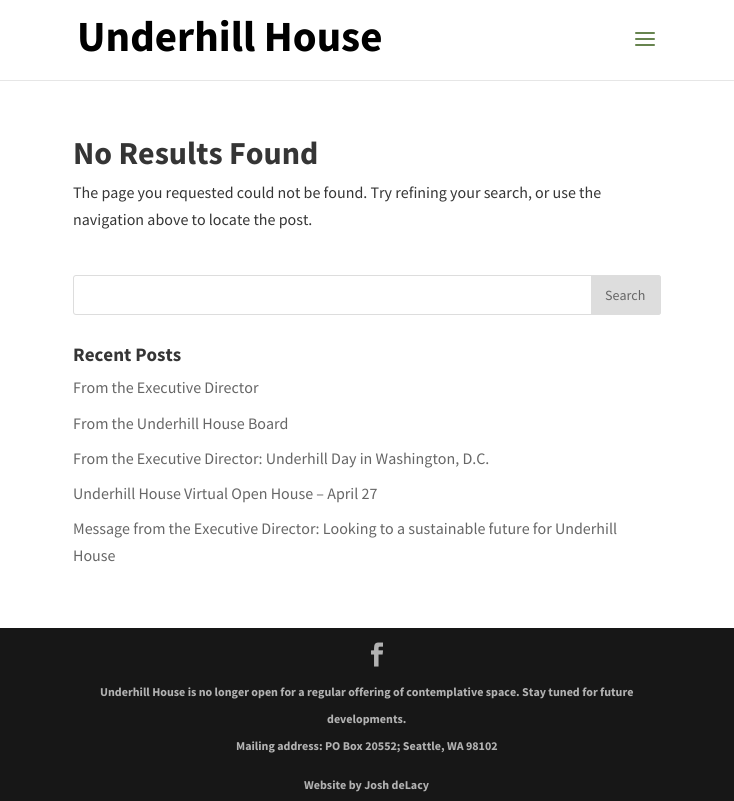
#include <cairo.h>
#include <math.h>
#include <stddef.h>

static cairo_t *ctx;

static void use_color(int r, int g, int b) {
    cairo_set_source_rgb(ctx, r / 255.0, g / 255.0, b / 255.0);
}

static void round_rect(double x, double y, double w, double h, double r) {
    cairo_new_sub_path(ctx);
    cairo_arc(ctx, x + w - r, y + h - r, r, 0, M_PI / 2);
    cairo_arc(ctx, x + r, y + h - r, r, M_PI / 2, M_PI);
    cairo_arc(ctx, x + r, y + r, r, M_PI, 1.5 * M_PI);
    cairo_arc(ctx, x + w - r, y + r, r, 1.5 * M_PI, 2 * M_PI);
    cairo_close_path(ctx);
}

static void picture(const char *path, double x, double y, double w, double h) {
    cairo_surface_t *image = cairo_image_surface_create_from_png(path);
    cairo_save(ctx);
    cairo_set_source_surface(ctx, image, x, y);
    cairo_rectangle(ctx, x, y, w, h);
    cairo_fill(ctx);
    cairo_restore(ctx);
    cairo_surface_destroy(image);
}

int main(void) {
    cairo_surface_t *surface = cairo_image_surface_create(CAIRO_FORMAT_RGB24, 734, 801);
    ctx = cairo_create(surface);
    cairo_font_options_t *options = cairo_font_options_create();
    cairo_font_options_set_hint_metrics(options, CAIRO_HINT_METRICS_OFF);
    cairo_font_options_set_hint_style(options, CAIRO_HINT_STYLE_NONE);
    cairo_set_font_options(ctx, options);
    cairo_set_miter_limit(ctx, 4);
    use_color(255, 255, 255);
    cairo_paint(ctx);
    use_color(230, 230, 230);
    cairo_rectangle(ctx, 0, 80, 734, 1);
    cairo_fill(ctx);
    cairo_select_font_face(ctx, "Source Sans Pro", CAIRO_FONT_SLANT_NORMAL, CAIRO_FONT_WEIGHT_BOLD);
    cairo_set_font_size(ctx, 43);
    use_color(0, 0, 0);
    cairo_move_to(ctx, 77, 51);
    cairo_show_text(ctx, "Underhill House");
    picture("img1.png", 635, 32, 20, 14);
    cairo_set_font_size(ctx, 32);
    use_color(53, 53, 53);
    cairo_move_to(ctx, 73, 164);
    cairo_show_text(ctx, "No Results Found");
    cairo_select_font_face(ctx, "Source Sans Pro", CAIRO_FONT_SLANT_NORMAL, CAIRO_FONT_WEIGHT_NORMAL);
    cairo_set_font_size(ctx, 16);
    cairo_move_to(ctx, 73, 198);
    cairo_show_text(ctx, "The page you requested could not be found. Try refining your search, or use the");
    cairo_move_to(ctx, 73, 225);
    cairo_show_text(ctx, "navigation above to locate the post.");
    round_rect(73.5, 275.5, 587, 39, 2.5);
    use_color(221, 221, 221);
    cairo_set_line_width(ctx, 1);
    cairo_stroke(ctx);
    cairo_new_path(ctx);
    cairo_move_to(ctx, 591.5, 275.5);
    cairo_line_to(ctx, 658, 275.5);
    cairo_curve_to(ctx, 659.5, 275.5, 660.5, 276.5, 660.5, 278);
    cairo_line_to(ctx, 660.5, 312);
    cairo_curve_to(ctx, 660.5, 313.5, 659.5, 314.5, 658, 314.5);
    cairo_line_to(ctx, 591.5, 314.5);
    cairo_close_path(ctx);
    cairo_fill_preserve(ctx);
    cairo_stroke(ctx);
    cairo_set_font_size(ctx, 14);
    use_color(102, 102, 102);
    cairo_move_to(ctx, 605, 300);
    cairo_show_text(ctx, "Search");
    cairo_select_font_face(ctx, "Source Sans Pro", CAIRO_FONT_SLANT_NORMAL, CAIRO_FONT_WEIGHT_BOLD);
    cairo_set_font_size(ctx, 19);
    use_color(53, 53, 53);
    cairo_move_to(ctx, 73, 361);
    cairo_show_text(ctx, "Recent Posts");
    cairo_select_font_face(ctx, "Source Sans Pro", CAIRO_FONT_SLANT_NORMAL, CAIRO_FONT_WEIGHT_NORMAL);
    cairo_set_font_size(ctx, 16);
    use_color(102, 102, 102);
    cairo_move_to(ctx, 73, 393);
    cairo_show_text(ctx, "From the Executive Director");
    cairo_move_to(ctx, 73, 429);
    cairo_show_text(ctx, "From the Underhill House Board");
    cairo_move_to(ctx, 73, 464);
    cairo_show_text(ctx, "From the Executive Director: Underhill Day in Washington, D.C.");
    cairo_move_to(ctx, 73, 499);
    cairo_show_text(ctx, "Underhill House Virtual Open House – April 27");
    cairo_move_to(ctx, 73, 534);
    cairo_show_text(ctx, "Message from the Executive Director: Looking to a sustainable future for Underhill");
    cairo_move_to(ctx, 73, 561);
    cairo_show_text(ctx, "House");
    use_color(23, 23, 23);
    cairo_rectangle(ctx, 0, 628, 734, 173);
    cairo_fill(ctx);
    picture("img2.png", 371, 642, 12, 25);
    cairo_select_font_face(ctx, "Source Sans Pro", CAIRO_FONT_SLANT_NORMAL, CAIRO_FONT_WEIGHT_BOLD);
    cairo_set_font_size(ctx, 12);
    use_color(178, 178, 178);
    cairo_move_to(ctx, 100, 696);
    cairo_show_text(ctx, "Underhill House is no longer open for a regular offering of contemplative space. Stay tuned for future");
    cairo_move_to(ctx, 327, 723);
    cairo_show_text(ctx, "developments.");
    cairo_move_to(ctx, 236, 750);
    cairo_show_text(ctx, "Mailing address: PO Box 20552; Seattle, WA 98102");
    cairo_move_to(ctx, 304, 789);
    cairo_show_text(ctx, "Website by Josh deLacy");
    cairo_surface_write_to_png(surface, "result.png");
    cairo_font_options_destroy(options);
    cairo_destroy(ctx);
    cairo_surface_destroy(surface);
    return 0;
}
